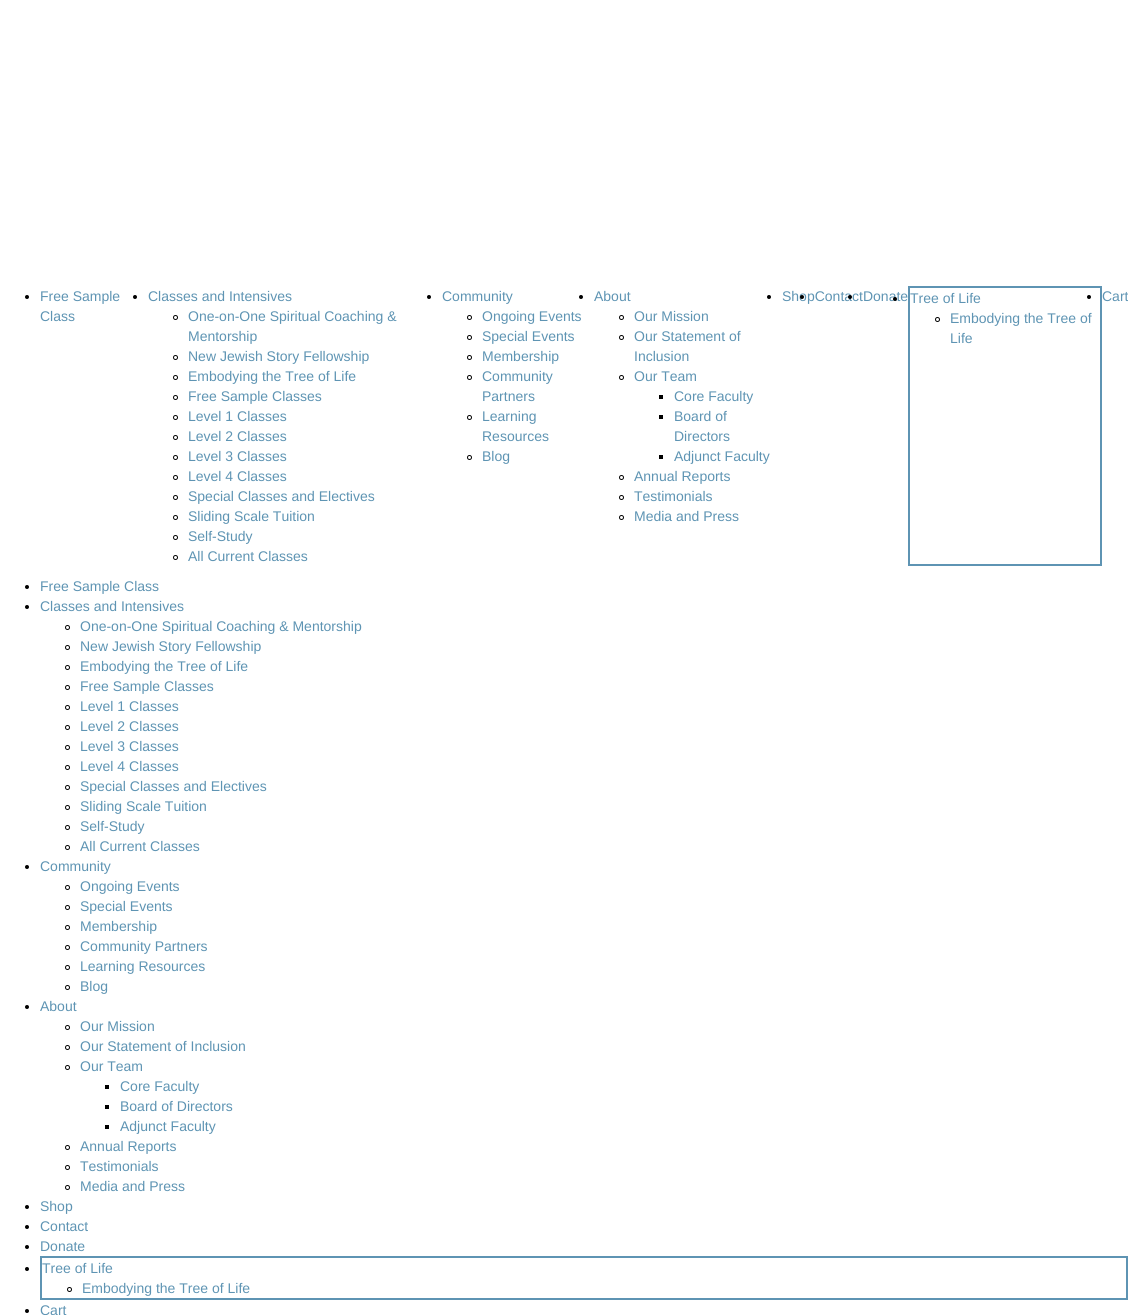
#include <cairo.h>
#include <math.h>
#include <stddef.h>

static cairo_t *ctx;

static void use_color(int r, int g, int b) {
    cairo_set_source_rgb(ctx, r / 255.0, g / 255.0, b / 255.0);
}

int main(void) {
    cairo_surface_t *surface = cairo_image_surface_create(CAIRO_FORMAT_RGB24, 1128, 1315);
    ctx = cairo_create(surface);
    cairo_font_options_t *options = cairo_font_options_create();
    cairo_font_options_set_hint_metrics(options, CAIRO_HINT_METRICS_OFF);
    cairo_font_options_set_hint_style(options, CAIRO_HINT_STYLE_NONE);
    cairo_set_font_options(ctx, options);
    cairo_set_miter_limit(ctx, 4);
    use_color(255, 255, 255);
    cairo_paint(ctx);
    use_color(0, 0, 0);
    cairo_arc(ctx, 27, 297, 2, 0, 2 * M_PI);
    cairo_fill(ctx);
    cairo_select_font_face(ctx, "Liberation Sans", CAIRO_FONT_SLANT_NORMAL, CAIRO_FONT_WEIGHT_NORMAL);
    cairo_set_font_size(ctx, 14);
    use_color(94, 148, 179);
    cairo_move_to(ctx, 40, 301);
    cairo_show_text(ctx, "Free Sample");
    cairo_move_to(ctx, 40, 321);
    cairo_show_text(ctx, "Class");
    use_color(0, 0, 0);
    cairo_new_path(ctx);
    cairo_arc(ctx, 135, 297, 2, 0, 2 * M_PI);
    cairo_fill(ctx);
    use_color(94, 148, 179);
    cairo_move_to(ctx, 148, 301);
    cairo_show_text(ctx, "Classes and Intensives");
    cairo_new_path(ctx);
    cairo_arc(ctx, 175.5, 317.5, 2, 0, 2 * M_PI);
    use_color(0, 0, 0);
    cairo_set_line_width(ctx, 1);
    cairo_stroke(ctx);
    use_color(94, 148, 179);
    cairo_move_to(ctx, 188, 321);
    cairo_show_text(ctx, "One-on-One Spiritual Coaching &");
    cairo_move_to(ctx, 188, 341);
    cairo_show_text(ctx, "Mentorship");
    cairo_new_path(ctx);
    cairo_arc(ctx, 175.5, 357.5, 2, 0, 2 * M_PI);
    use_color(0, 0, 0);
    cairo_stroke(ctx);
    use_color(94, 148, 179);
    cairo_move_to(ctx, 188, 361);
    cairo_show_text(ctx, "New Jewish Story Fellowship");
    cairo_new_path(ctx);
    cairo_arc(ctx, 175.5, 377.5, 2, 0, 2 * M_PI);
    use_color(0, 0, 0);
    cairo_stroke(ctx);
    use_color(94, 148, 179);
    cairo_move_to(ctx, 188, 381);
    cairo_show_text(ctx, "Embodying the Tree of Life");
    cairo_new_path(ctx);
    cairo_arc(ctx, 175.5, 397.5, 2, 0, 2 * M_PI);
    use_color(0, 0, 0);
    cairo_stroke(ctx);
    use_color(94, 148, 179);
    cairo_move_to(ctx, 188, 401);
    cairo_show_text(ctx, "Free Sample Classes");
    cairo_new_path(ctx);
    cairo_arc(ctx, 175.5, 417.5, 2, 0, 2 * M_PI);
    use_color(0, 0, 0);
    cairo_stroke(ctx);
    use_color(94, 148, 179);
    cairo_move_to(ctx, 188, 421);
    cairo_show_text(ctx, "Level 1 Classes");
    cairo_new_path(ctx);
    cairo_arc(ctx, 175.5, 437.5, 2, 0, 2 * M_PI);
    use_color(0, 0, 0);
    cairo_stroke(ctx);
    use_color(94, 148, 179);
    cairo_move_to(ctx, 188, 441);
    cairo_show_text(ctx, "Level 2 Classes");
    cairo_new_path(ctx);
    cairo_arc(ctx, 175.5, 457.5, 2, 0, 2 * M_PI);
    use_color(0, 0, 0);
    cairo_stroke(ctx);
    use_color(94, 148, 179);
    cairo_move_to(ctx, 188, 461);
    cairo_show_text(ctx, "Level 3 Classes");
    cairo_new_path(ctx);
    cairo_arc(ctx, 175.5, 477.5, 2, 0, 2 * M_PI);
    use_color(0, 0, 0);
    cairo_stroke(ctx);
    use_color(94, 148, 179);
    cairo_move_to(ctx, 188, 481);
    cairo_show_text(ctx, "Level 4 Classes");
    cairo_new_path(ctx);
    cairo_arc(ctx, 175.5, 497.5, 2, 0, 2 * M_PI);
    use_color(0, 0, 0);
    cairo_stroke(ctx);
    use_color(94, 148, 179);
    cairo_move_to(ctx, 188, 501);
    cairo_show_text(ctx, "Special Classes and Electives");
    cairo_new_path(ctx);
    cairo_arc(ctx, 175.5, 517.5, 2, 0, 2 * M_PI);
    use_color(0, 0, 0);
    cairo_stroke(ctx);
    use_color(94, 148, 179);
    cairo_move_to(ctx, 188, 521);
    cairo_show_text(ctx, "Sliding Scale Tuition");
    cairo_new_path(ctx);
    cairo_arc(ctx, 175.5, 537.5, 2, 0, 2 * M_PI);
    use_color(0, 0, 0);
    cairo_stroke(ctx);
    use_color(94, 148, 179);
    cairo_move_to(ctx, 188, 541);
    cairo_show_text(ctx, "Self-Study");
    cairo_new_path(ctx);
    cairo_arc(ctx, 175.5, 557.5, 2, 0, 2 * M_PI);
    use_color(0, 0, 0);
    cairo_stroke(ctx);
    use_color(94, 148, 179);
    cairo_move_to(ctx, 188, 561);
    cairo_show_text(ctx, "All Current Classes");
    use_color(0, 0, 0);
    cairo_new_path(ctx);
    cairo_arc(ctx, 429, 297, 2, 0, 2 * M_PI);
    cairo_fill(ctx);
    use_color(94, 148, 179);
    cairo_move_to(ctx, 442, 301);
    cairo_show_text(ctx, "Community");
    cairo_new_path(ctx);
    cairo_arc(ctx, 469.5, 317.5, 2, 0, 2 * M_PI);
    use_color(0, 0, 0);
    cairo_stroke(ctx);
    use_color(94, 148, 179);
    cairo_move_to(ctx, 482, 321);
    cairo_show_text(ctx, "Ongoing Events");
    cairo_new_path(ctx);
    cairo_arc(ctx, 469.5, 337.5, 2, 0, 2 * M_PI);
    use_color(0, 0, 0);
    cairo_stroke(ctx);
    use_color(94, 148, 179);
    cairo_move_to(ctx, 482, 341);
    cairo_show_text(ctx, "Special Events");
    cairo_new_path(ctx);
    cairo_arc(ctx, 469.5, 357.5, 2, 0, 2 * M_PI);
    use_color(0, 0, 0);
    cairo_stroke(ctx);
    use_color(94, 148, 179);
    cairo_move_to(ctx, 482, 361);
    cairo_show_text(ctx, "Membership");
    cairo_new_path(ctx);
    cairo_arc(ctx, 469.5, 377.5, 2, 0, 2 * M_PI);
    use_color(0, 0, 0);
    cairo_stroke(ctx);
    use_color(94, 148, 179);
    cairo_move_to(ctx, 482, 381);
    cairo_show_text(ctx, "Community");
    cairo_move_to(ctx, 482, 401);
    cairo_show_text(ctx, "Partners");
    cairo_new_path(ctx);
    cairo_arc(ctx, 469.5, 417.5, 2, 0, 2 * M_PI);
    use_color(0, 0, 0);
    cairo_stroke(ctx);
    use_color(94, 148, 179);
    cairo_move_to(ctx, 482, 421);
    cairo_show_text(ctx, "Learning");
    cairo_move_to(ctx, 482, 441);
    cairo_show_text(ctx, "Resources");
    cairo_new_path(ctx);
    cairo_arc(ctx, 469.5, 457.5, 2, 0, 2 * M_PI);
    use_color(0, 0, 0);
    cairo_stroke(ctx);
    use_color(94, 148, 179);
    cairo_move_to(ctx, 482, 461);
    cairo_show_text(ctx, "Blog");
    use_color(0, 0, 0);
    cairo_new_path(ctx);
    cairo_arc(ctx, 581, 297, 2, 0, 2 * M_PI);
    cairo_fill(ctx);
    use_color(94, 148, 179);
    cairo_move_to(ctx, 594, 301);
    cairo_show_text(ctx, "About");
    cairo_new_path(ctx);
    cairo_arc(ctx, 621.5, 317.5, 2, 0, 2 * M_PI);
    use_color(0, 0, 0);
    cairo_stroke(ctx);
    use_color(94, 148, 179);
    cairo_move_to(ctx, 634, 321);
    cairo_show_text(ctx, "Our Mission");
    cairo_new_path(ctx);
    cairo_arc(ctx, 621.5, 337.5, 2, 0, 2 * M_PI);
    use_color(0, 0, 0);
    cairo_stroke(ctx);
    use_color(94, 148, 179);
    cairo_move_to(ctx, 634, 341);
    cairo_show_text(ctx, "Our Statement of");
    cairo_move_to(ctx, 634, 361);
    cairo_show_text(ctx, "Inclusion");
    cairo_new_path(ctx);
    cairo_arc(ctx, 621.5, 377.5, 2, 0, 2 * M_PI);
    use_color(0, 0, 0);
    cairo_stroke(ctx);
    use_color(94, 148, 179);
    cairo_move_to(ctx, 634, 381);
    cairo_show_text(ctx, "Our Team");
    use_color(0, 0, 0);
    cairo_rectangle(ctx, 659, 395, 4, 4);
    cairo_fill(ctx);
    use_color(94, 148, 179);
    cairo_move_to(ctx, 674, 401);
    cairo_show_text(ctx, "Core Faculty");
    use_color(0, 0, 0);
    cairo_rectangle(ctx, 659, 415, 4, 4);
    cairo_fill(ctx);
    use_color(94, 148, 179);
    cairo_move_to(ctx, 674, 421);
    cairo_show_text(ctx, "Board of");
    cairo_move_to(ctx, 674, 441);
    cairo_show_text(ctx, "Directors");
    use_color(0, 0, 0);
    cairo_rectangle(ctx, 659, 455, 4, 4);
    cairo_fill(ctx);
    use_color(94, 148, 179);
    cairo_move_to(ctx, 674, 461);
    cairo_show_text(ctx, "Adjunct Faculty");
    cairo_new_path(ctx);
    cairo_arc(ctx, 621.5, 477.5, 2, 0, 2 * M_PI);
    use_color(0, 0, 0);
    cairo_stroke(ctx);
    use_color(94, 148, 179);
    cairo_move_to(ctx, 634, 481);
    cairo_show_text(ctx, "Annual Reports");
    cairo_new_path(ctx);
    cairo_arc(ctx, 621.5, 497.5, 2, 0, 2 * M_PI);
    use_color(0, 0, 0);
    cairo_stroke(ctx);
    use_color(94, 148, 179);
    cairo_move_to(ctx, 634, 501);
    cairo_show_text(ctx, "Testimonials");
    cairo_new_path(ctx);
    cairo_arc(ctx, 621.5, 517.5, 2, 0, 2 * M_PI);
    use_color(0, 0, 0);
    cairo_stroke(ctx);
    use_color(94, 148, 179);
    cairo_move_to(ctx, 634, 521);
    cairo_show_text(ctx, "Media and Press");
    use_color(0, 0, 0);
    cairo_new_path(ctx);
    cairo_arc(ctx, 769, 297, 2, 0, 2 * M_PI);
    cairo_fill(ctx);
    use_color(94, 148, 179);
    cairo_move_to(ctx, 782, 301);
    cairo_show_text(ctx, "ShopContactDonate");
    cairo_rectangle(ctx, 909, 287, 192, 278);
    cairo_set_line_width(ctx, 2);
    cairo_stroke(ctx);
    use_color(0, 0, 0);
    cairo_arc(ctx, 895, 299, 2, 0, 2 * M_PI);
    cairo_fill(ctx);
    use_color(94, 148, 179);
    cairo_move_to(ctx, 910, 303);
    cairo_show_text(ctx, "Tree of Life");
    cairo_new_path(ctx);
    cairo_arc(ctx, 937.5, 319.5, 2, 0, 2 * M_PI);
    use_color(0, 0, 0);
    cairo_set_line_width(ctx, 1);
    cairo_stroke(ctx);
    use_color(94, 148, 179);
    cairo_move_to(ctx, 950, 323);
    cairo_show_text(ctx, "Embodying the Tree of");
    cairo_move_to(ctx, 950, 343);
    cairo_show_text(ctx, "Life");
    use_color(0, 0, 0);
    cairo_new_path(ctx);
    cairo_arc(ctx, 1089, 297, 2, 0, 2 * M_PI);
    cairo_fill(ctx);
    use_color(94, 148, 179);
    cairo_move_to(ctx, 1102, 301);
    cairo_show_text(ctx, "Cart");
    use_color(0, 0, 0);
    cairo_new_path(ctx);
    cairo_arc(ctx, 802, 297, 2, 0, 2 * M_PI);
    cairo_fill(ctx);
    cairo_arc(ctx, 850, 297, 2, 0, 2 * M_PI);
    cairo_fill(ctx);
    cairo_arc(ctx, 27, 587, 2, 0, 2 * M_PI);
    cairo_fill(ctx);
    use_color(94, 148, 179);
    cairo_move_to(ctx, 40, 591);
    cairo_show_text(ctx, "Free Sample Class");
    use_color(0, 0, 0);
    cairo_new_path(ctx);
    cairo_arc(ctx, 27, 607, 2, 0, 2 * M_PI);
    cairo_fill(ctx);
    use_color(94, 148, 179);
    cairo_move_to(ctx, 40, 611);
    cairo_show_text(ctx, "Classes and Intensives");
    cairo_new_path(ctx);
    cairo_arc(ctx, 67.5, 627.5, 2, 0, 2 * M_PI);
    use_color(0, 0, 0);
    cairo_stroke(ctx);
    use_color(94, 148, 179);
    cairo_move_to(ctx, 80, 631);
    cairo_show_text(ctx, "One-on-One Spiritual Coaching & Mentorship");
    cairo_new_path(ctx);
    cairo_arc(ctx, 67.5, 647.5, 2, 0, 2 * M_PI);
    use_color(0, 0, 0);
    cairo_stroke(ctx);
    use_color(94, 148, 179);
    cairo_move_to(ctx, 80, 651);
    cairo_show_text(ctx, "New Jewish Story Fellowship");
    cairo_new_path(ctx);
    cairo_arc(ctx, 67.5, 667.5, 2, 0, 2 * M_PI);
    use_color(0, 0, 0);
    cairo_stroke(ctx);
    use_color(94, 148, 179);
    cairo_move_to(ctx, 80, 671);
    cairo_show_text(ctx, "Embodying the Tree of Life");
    cairo_new_path(ctx);
    cairo_arc(ctx, 67.5, 687.5, 2, 0, 2 * M_PI);
    use_color(0, 0, 0);
    cairo_stroke(ctx);
    use_color(94, 148, 179);
    cairo_move_to(ctx, 80, 691);
    cairo_show_text(ctx, "Free Sample Classes");
    cairo_new_path(ctx);
    cairo_arc(ctx, 67.5, 707.5, 2, 0, 2 * M_PI);
    use_color(0, 0, 0);
    cairo_stroke(ctx);
    use_color(94, 148, 179);
    cairo_move_to(ctx, 80, 711);
    cairo_show_text(ctx, "Level 1 Classes");
    cairo_new_path(ctx);
    cairo_arc(ctx, 67.5, 727.5, 2, 0, 2 * M_PI);
    use_color(0, 0, 0);
    cairo_stroke(ctx);
    use_color(94, 148, 179);
    cairo_move_to(ctx, 80, 731);
    cairo_show_text(ctx, "Level 2 Classes");
    cairo_new_path(ctx);
    cairo_arc(ctx, 67.5, 747.5, 2, 0, 2 * M_PI);
    use_color(0, 0, 0);
    cairo_stroke(ctx);
    use_color(94, 148, 179);
    cairo_move_to(ctx, 80, 751);
    cairo_show_text(ctx, "Level 3 Classes");
    cairo_new_path(ctx);
    cairo_arc(ctx, 67.5, 767.5, 2, 0, 2 * M_PI);
    use_color(0, 0, 0);
    cairo_stroke(ctx);
    use_color(94, 148, 179);
    cairo_move_to(ctx, 80, 771);
    cairo_show_text(ctx, "Level 4 Classes");
    cairo_new_path(ctx);
    cairo_arc(ctx, 67.5, 787.5, 2, 0, 2 * M_PI);
    use_color(0, 0, 0);
    cairo_stroke(ctx);
    use_color(94, 148, 179);
    cairo_move_to(ctx, 80, 791);
    cairo_show_text(ctx, "Special Classes and Electives");
    cairo_new_path(ctx);
    cairo_arc(ctx, 67.5, 807.5, 2, 0, 2 * M_PI);
    use_color(0, 0, 0);
    cairo_stroke(ctx);
    use_color(94, 148, 179);
    cairo_move_to(ctx, 80, 811);
    cairo_show_text(ctx, "Sliding Scale Tuition");
    cairo_new_path(ctx);
    cairo_arc(ctx, 67.5, 827.5, 2, 0, 2 * M_PI);
    use_color(0, 0, 0);
    cairo_stroke(ctx);
    use_color(94, 148, 179);
    cairo_move_to(ctx, 80, 831);
    cairo_show_text(ctx, "Self-Study");
    cairo_new_path(ctx);
    cairo_arc(ctx, 67.5, 847.5, 2, 0, 2 * M_PI);
    use_color(0, 0, 0);
    cairo_stroke(ctx);
    use_color(94, 148, 179);
    cairo_move_to(ctx, 80, 851);
    cairo_show_text(ctx, "All Current Classes");
    use_color(0, 0, 0);
    cairo_new_path(ctx);
    cairo_arc(ctx, 27, 867, 2, 0, 2 * M_PI);
    cairo_fill(ctx);
    use_color(94, 148, 179);
    cairo_move_to(ctx, 40, 871);
    cairo_show_text(ctx, "Community");
    cairo_new_path(ctx);
    cairo_arc(ctx, 67.5, 887.5, 2, 0, 2 * M_PI);
    use_color(0, 0, 0);
    cairo_stroke(ctx);
    use_color(94, 148, 179);
    cairo_move_to(ctx, 80, 891);
    cairo_show_text(ctx, "Ongoing Events");
    cairo_new_path(ctx);
    cairo_arc(ctx, 67.5, 907.5, 2, 0, 2 * M_PI);
    use_color(0, 0, 0);
    cairo_stroke(ctx);
    use_color(94, 148, 179);
    cairo_move_to(ctx, 80, 911);
    cairo_show_text(ctx, "Special Events");
    cairo_new_path(ctx);
    cairo_arc(ctx, 67.5, 927.5, 2, 0, 2 * M_PI);
    use_color(0, 0, 0);
    cairo_stroke(ctx);
    use_color(94, 148, 179);
    cairo_move_to(ctx, 80, 931);
    cairo_show_text(ctx, "Membership");
    cairo_new_path(ctx);
    cairo_arc(ctx, 67.5, 947.5, 2, 0, 2 * M_PI);
    use_color(0, 0, 0);
    cairo_stroke(ctx);
    use_color(94, 148, 179);
    cairo_move_to(ctx, 80, 951);
    cairo_show_text(ctx, "Community Partners");
    cairo_new_path(ctx);
    cairo_arc(ctx, 67.5, 967.5, 2, 0, 2 * M_PI);
    use_color(0, 0, 0);
    cairo_stroke(ctx);
    use_color(94, 148, 179);
    cairo_move_to(ctx, 80, 971);
    cairo_show_text(ctx, "Learning Resources");
    cairo_new_path(ctx);
    cairo_arc(ctx, 67.5, 987.5, 2, 0, 2 * M_PI);
    use_color(0, 0, 0);
    cairo_stroke(ctx);
    use_color(94, 148, 179);
    cairo_move_to(ctx, 80, 991);
    cairo_show_text(ctx, "Blog");
    use_color(0, 0, 0);
    cairo_new_path(ctx);
    cairo_arc(ctx, 27, 1007, 2, 0, 2 * M_PI);
    cairo_fill(ctx);
    use_color(94, 148, 179);
    cairo_move_to(ctx, 40, 1011);
    cairo_show_text(ctx, "About");
    cairo_new_path(ctx);
    cairo_arc(ctx, 67.5, 1027.5, 2, 0, 2 * M_PI);
    use_color(0, 0, 0);
    cairo_stroke(ctx);
    use_color(94, 148, 179);
    cairo_move_to(ctx, 80, 1031);
    cairo_show_text(ctx, "Our Mission");
    cairo_new_path(ctx);
    cairo_arc(ctx, 67.5, 1047.5, 2, 0, 2 * M_PI);
    use_color(0, 0, 0);
    cairo_stroke(ctx);
    use_color(94, 148, 179);
    cairo_move_to(ctx, 80, 1051);
    cairo_show_text(ctx, "Our Statement of Inclusion");
    cairo_new_path(ctx);
    cairo_arc(ctx, 67.5, 1067.5, 2, 0, 2 * M_PI);
    use_color(0, 0, 0);
    cairo_stroke(ctx);
    use_color(94, 148, 179);
    cairo_move_to(ctx, 80, 1071);
    cairo_show_text(ctx, "Our Team");
    use_color(0, 0, 0);
    cairo_rectangle(ctx, 105, 1085, 4, 4);
    cairo_fill(ctx);
    use_color(94, 148, 179);
    cairo_move_to(ctx, 120, 1091);
    cairo_show_text(ctx, "Core Faculty");
    use_color(0, 0, 0);
    cairo_rectangle(ctx, 105, 1105, 4, 4);
    cairo_fill(ctx);
    use_color(94, 148, 179);
    cairo_move_to(ctx, 120, 1111);
    cairo_show_text(ctx, "Board of Directors");
    use_color(0, 0, 0);
    cairo_rectangle(ctx, 105, 1125, 4, 4);
    cairo_fill(ctx);
    use_color(94, 148, 179);
    cairo_move_to(ctx, 120, 1131);
    cairo_show_text(ctx, "Adjunct Faculty");
    cairo_new_path(ctx);
    cairo_arc(ctx, 67.5, 1147.5, 2, 0, 2 * M_PI);
    use_color(0, 0, 0);
    cairo_stroke(ctx);
    use_color(94, 148, 179);
    cairo_move_to(ctx, 80, 1151);
    cairo_show_text(ctx, "Annual Reports");
    cairo_new_path(ctx);
    cairo_arc(ctx, 67.5, 1167.5, 2, 0, 2 * M_PI);
    use_color(0, 0, 0);
    cairo_stroke(ctx);
    use_color(94, 148, 179);
    cairo_move_to(ctx, 80, 1171);
    cairo_show_text(ctx, "Testimonials");
    cairo_new_path(ctx);
    cairo_arc(ctx, 67.5, 1187.5, 2, 0, 2 * M_PI);
    use_color(0, 0, 0);
    cairo_stroke(ctx);
    use_color(94, 148, 179);
    cairo_move_to(ctx, 80, 1191);
    cairo_show_text(ctx, "Media and Press");
    use_color(0, 0, 0);
    cairo_new_path(ctx);
    cairo_arc(ctx, 27, 1207, 2, 0, 2 * M_PI);
    cairo_fill(ctx);
    use_color(94, 148, 179);
    cairo_move_to(ctx, 40, 1211);
    cairo_show_text(ctx, "Shop");
    use_color(0, 0, 0);
    cairo_new_path(ctx);
    cairo_arc(ctx, 27, 1227, 2, 0, 2 * M_PI);
    cairo_fill(ctx);
    use_color(94, 148, 179);
    cairo_move_to(ctx, 40, 1231);
    cairo_show_text(ctx, "Contact");
    use_color(0, 0, 0);
    cairo_new_path(ctx);
    cairo_arc(ctx, 27, 1247, 2, 0, 2 * M_PI);
    cairo_fill(ctx);
    use_color(94, 148, 179);
    cairo_move_to(ctx, 40, 1251);
    cairo_show_text(ctx, "Donate");
    cairo_rectangle(ctx, 41, 1257, 1086, 42);
    cairo_set_line_width(ctx, 2);
    cairo_stroke(ctx);
    use_color(0, 0, 0);
    cairo_arc(ctx, 27, 1269, 2, 0, 2 * M_PI);
    cairo_fill(ctx);
    use_color(94, 148, 179);
    cairo_move_to(ctx, 42, 1273);
    cairo_show_text(ctx, "Tree of Life");
    cairo_new_path(ctx);
    cairo_arc(ctx, 69.5, 1289.5, 2, 0, 2 * M_PI);
    use_color(0, 0, 0);
    cairo_set_line_width(ctx, 1);
    cairo_stroke(ctx);
    use_color(94, 148, 179);
    cairo_move_to(ctx, 82, 1293);
    cairo_show_text(ctx, "Embodying the Tree of Life");
    use_color(0, 0, 0);
    cairo_new_path(ctx);
    cairo_arc(ctx, 27, 1311, 2, 0, 2 * M_PI);
    cairo_fill(ctx);
    use_color(94, 148, 179);
    cairo_move_to(ctx, 40, 1315);
    cairo_show_text(ctx, "Cart");
    cairo_surface_write_to_png(surface, "result.png");
    cairo_font_options_destroy(options);
    cairo_destroy(ctx);
    cairo_surface_destroy(surface);
    return 0;
}
